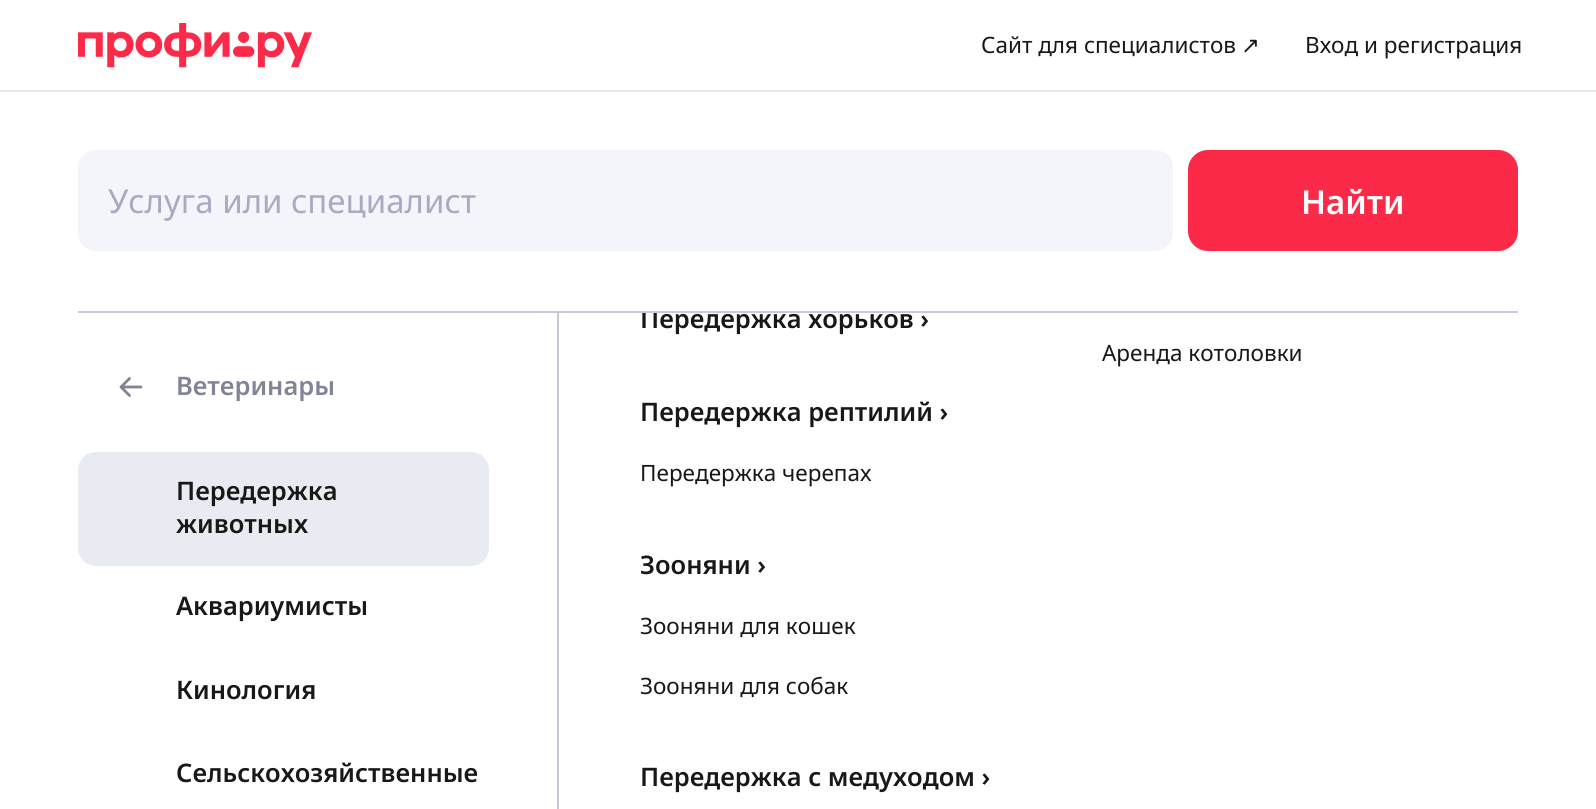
#include <cairo.h>
#include <math.h>
#include <stddef.h>

static cairo_t *ctx;

static void use_color(int r, int g, int b) {
    cairo_set_source_rgb(ctx, r / 255.0, g / 255.0, b / 255.0);
}

static void round_rect(double x, double y, double w, double h, double r) {
    cairo_new_sub_path(ctx);
    cairo_arc(ctx, x + w - r, y + h - r, r, 0, M_PI / 2);
    cairo_arc(ctx, x + r, y + h - r, r, M_PI / 2, M_PI);
    cairo_arc(ctx, x + r, y + r, r, M_PI, 1.5 * M_PI);
    cairo_arc(ctx, x + w - r, y + r, r, 1.5 * M_PI, 2 * M_PI);
    cairo_close_path(ctx);
}

static void picture(const char *path, double x, double y, double w, double h) {
    cairo_surface_t *image = cairo_image_surface_create_from_png(path);
    cairo_save(ctx);
    cairo_set_source_surface(ctx, image, x, y);
    cairo_rectangle(ctx, x, y, w, h);
    cairo_fill(ctx);
    cairo_restore(ctx);
    cairo_surface_destroy(image);
}

int main(void) {
    cairo_surface_t *surface = cairo_image_surface_create(CAIRO_FORMAT_RGB24, 1596, 809);
    ctx = cairo_create(surface);
    cairo_font_options_t *options = cairo_font_options_create();
    cairo_font_options_set_hint_metrics(options, CAIRO_HINT_METRICS_OFF);
    cairo_font_options_set_hint_style(options, CAIRO_HINT_STYLE_NONE);
    cairo_set_font_options(ctx, options);
    cairo_set_miter_limit(ctx, 4);
    use_color(255, 255, 255);
    cairo_paint(ctx);
    use_color(232, 232, 244);
    cairo_rectangle(ctx, 0, 90, 1596, 2);
    cairo_fill(ctx);
    picture("img1.png", 78, 23, 234, 45);
    cairo_select_font_face(ctx, "Noto Sans", CAIRO_FONT_SLANT_NORMAL, CAIRO_FONT_WEIGHT_NORMAL);
    cairo_set_font_size(ctx, 22.5);
    use_color(24, 24, 24);
    cairo_move_to(ctx, 981, 53);
    cairo_show_text(ctx, "Сайт для специалистов");
    cairo_select_font_face(ctx, "DejaVu Sans", CAIRO_FONT_SLANT_NORMAL, CAIRO_FONT_WEIGHT_NORMAL);
    cairo_move_to(ctx, 1241, 53);
    cairo_show_text(ctx, "↗");
    cairo_select_font_face(ctx, "Noto Sans", CAIRO_FONT_SLANT_NORMAL, CAIRO_FONT_WEIGHT_NORMAL);
    cairo_move_to(ctx, 1305, 53);
    cairo_show_text(ctx, "Вход и регистрация");
    use_color(201, 201, 221);
    cairo_rectangle(ctx, 557, 308, 2, 501);
    cairo_fill(ctx);
    cairo_select_font_face(ctx, "Noto Sans SemiBold", CAIRO_FONT_SLANT_NORMAL, CAIRO_FONT_WEIGHT_NORMAL);
    cairo_set_font_size(ctx, 25.5);
    use_color(24, 24, 24);
    cairo_move_to(ctx, 640, 328);
    cairo_show_text(ctx, "Передержка хорьков ›");
    use_color(255, 255, 255);
    cairo_rectangle(ctx, 557, 308, 101, 3);
    cairo_fill(ctx);
    use_color(201, 201, 221);
    cairo_rectangle(ctx, 78, 311, 1440, 2);
    cairo_fill(ctx);
    use_color(244, 245, 251);
    round_rect(78, 150, 1095, 101, 18);
    cairo_fill(ctx);
    cairo_select_font_face(ctx, "Noto Sans", CAIRO_FONT_SLANT_NORMAL, CAIRO_FONT_WEIGHT_NORMAL);
    cairo_set_font_size(ctx, 33);
    use_color(169, 169, 193);
    cairo_move_to(ctx, 108, 213);
    cairo_show_text(ctx, "Услуга или специалист");
    use_color(250, 42, 72);
    round_rect(1188, 150, 330, 101, 20);
    cairo_fill(ctx);
    cairo_select_font_face(ctx, "Noto Sans SemiBold", CAIRO_FONT_SLANT_NORMAL, CAIRO_FONT_WEIGHT_NORMAL);
    use_color(255, 255, 255);
    cairo_move_to(ctx, 1301, 214);
    cairo_show_text(ctx, "Найти");
    cairo_new_path(ctx);
    cairo_move_to(ctx, 141, 387);
    cairo_line_to(ctx, 121, 387);
    cairo_move_to(ctx, 121, 387);
    cairo_line_to(ctx, 129.5, 378.5);
    cairo_move_to(ctx, 121, 387);
    cairo_line_to(ctx, 129.5, 395.5);
    use_color(131, 131, 152);
    cairo_set_line_width(ctx, 2.8);
    cairo_set_line_cap(ctx, CAIRO_LINE_CAP_ROUND);
    cairo_set_line_join(ctx, CAIRO_LINE_JOIN_ROUND);
    cairo_stroke(ctx);
    cairo_set_font_size(ctx, 25.5);
    cairo_move_to(ctx, 176, 395);
    cairo_show_text(ctx, "Ветеринары");
    use_color(232, 235, 241);
    round_rect(78, 452, 411, 114, 18);
    cairo_fill(ctx);
    use_color(24, 24, 24);
    cairo_move_to(ctx, 176, 500);
    cairo_show_text(ctx, "Передержка");
    cairo_move_to(ctx, 176, 533);
    cairo_show_text(ctx, "животных");
    cairo_move_to(ctx, 176, 615);
    cairo_show_text(ctx, "Аквариумисты");
    cairo_move_to(ctx, 176, 699);
    cairo_show_text(ctx, "Кинология");
    cairo_move_to(ctx, 176, 782);
    cairo_show_text(ctx, "Сельскохозяйственные");
    cairo_move_to(ctx, 640, 421);
    cairo_show_text(ctx, "Передержка рептилий ›");
    cairo_select_font_face(ctx, "Noto Sans", CAIRO_FONT_SLANT_NORMAL, CAIRO_FONT_WEIGHT_NORMAL);
    cairo_set_font_size(ctx, 22.5);
    cairo_move_to(ctx, 640, 481);
    cairo_show_text(ctx, "Передержка черепах");
    cairo_select_font_face(ctx, "Noto Sans SemiBold", CAIRO_FONT_SLANT_NORMAL, CAIRO_FONT_WEIGHT_NORMAL);
    cairo_set_font_size(ctx, 25.5);
    cairo_move_to(ctx, 640, 574);
    cairo_show_text(ctx, "Зооняни ›");
    cairo_select_font_face(ctx, "Noto Sans", CAIRO_FONT_SLANT_NORMAL, CAIRO_FONT_WEIGHT_NORMAL);
    cairo_set_font_size(ctx, 22.5);
    cairo_move_to(ctx, 640, 634);
    cairo_show_text(ctx, "Зооняни для кошек");
    cairo_move_to(ctx, 640, 694);
    cairo_show_text(ctx, "Зооняни для собак");
    cairo_select_font_face(ctx, "Noto Sans SemiBold", CAIRO_FONT_SLANT_NORMAL, CAIRO_FONT_WEIGHT_NORMAL);
    cairo_set_font_size(ctx, 25.5);
    cairo_move_to(ctx, 640, 786);
    cairo_show_text(ctx, "Передержка с медуходом ›");
    cairo_select_font_face(ctx, "Noto Sans", CAIRO_FONT_SLANT_NORMAL, CAIRO_FONT_WEIGHT_NORMAL);
    cairo_set_font_size(ctx, 22.5);
    cairo_move_to(ctx, 1102, 361);
    cairo_show_text(ctx, "Аренда котоловки");
    cairo_surface_write_to_png(surface, "result.png");
    cairo_font_options_destroy(options);
    cairo_destroy(ctx);
    cairo_surface_destroy(surface);
    return 0;
}
